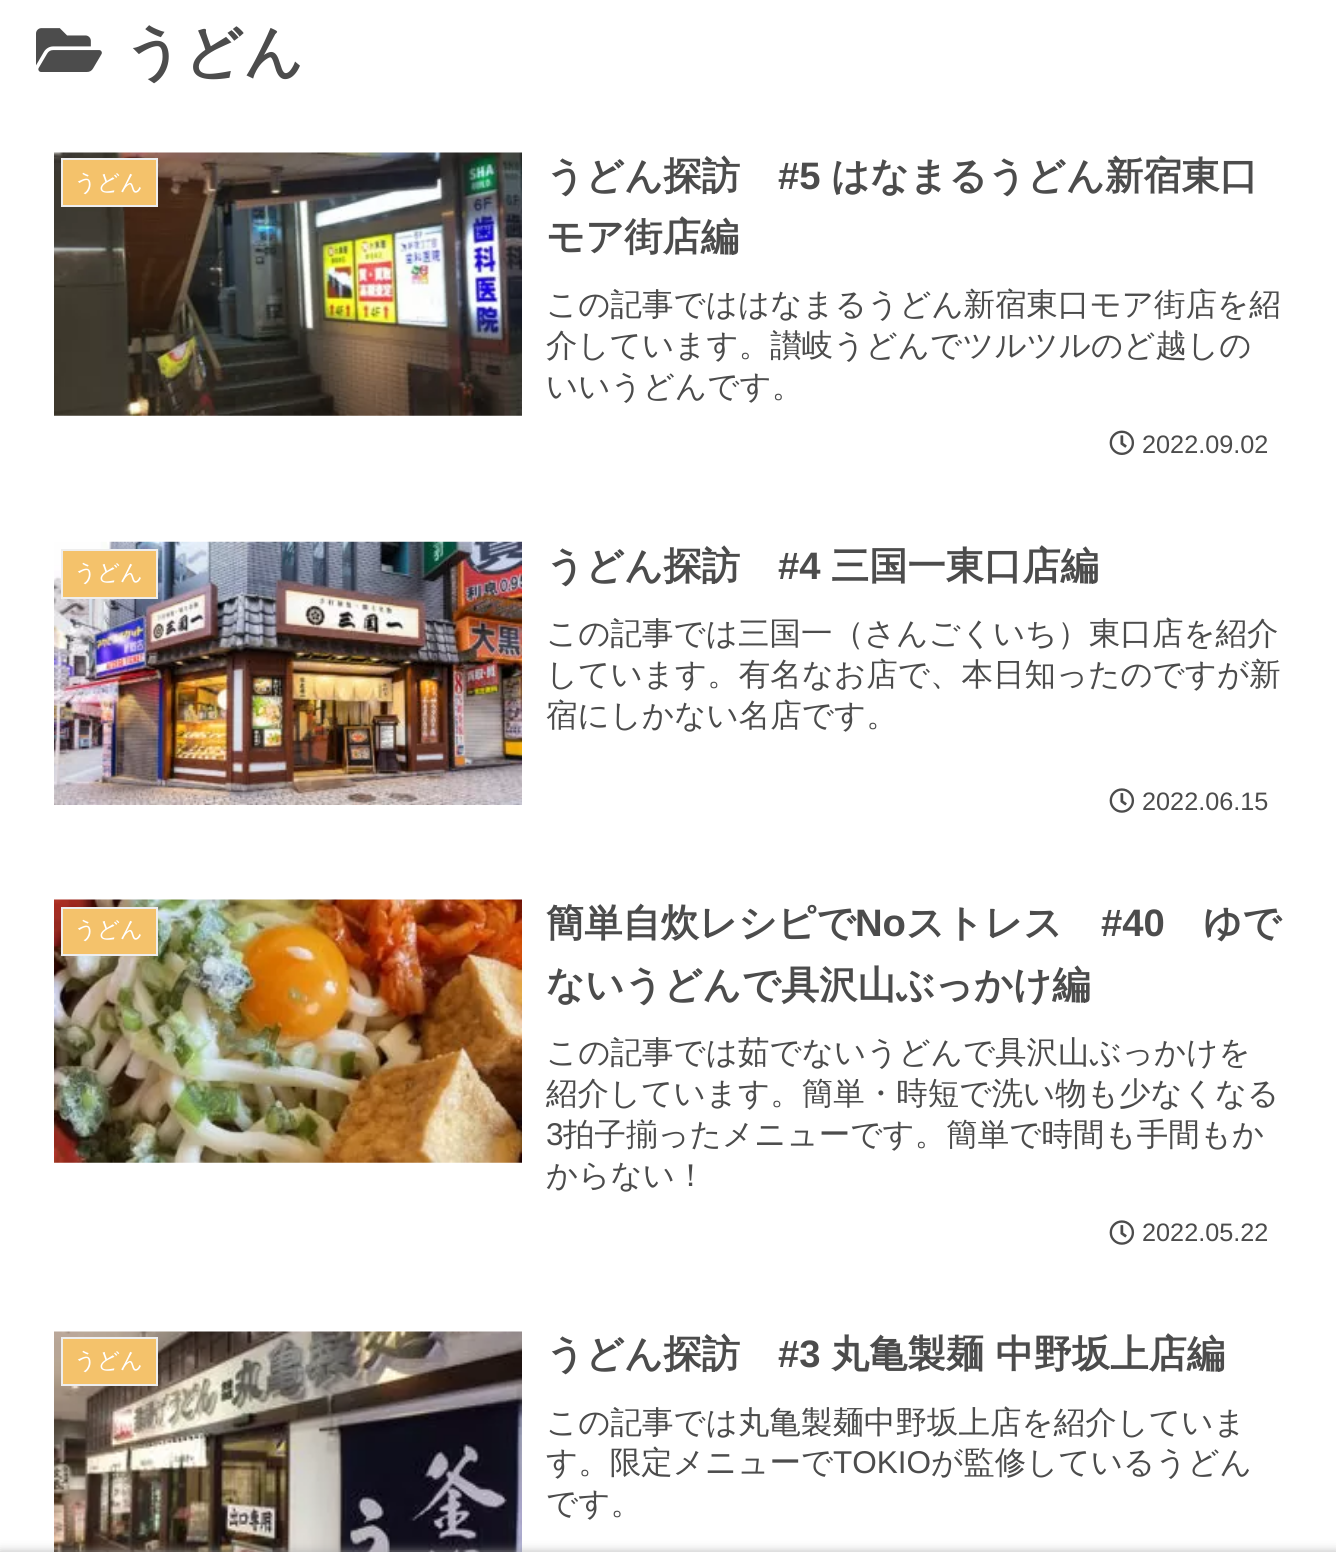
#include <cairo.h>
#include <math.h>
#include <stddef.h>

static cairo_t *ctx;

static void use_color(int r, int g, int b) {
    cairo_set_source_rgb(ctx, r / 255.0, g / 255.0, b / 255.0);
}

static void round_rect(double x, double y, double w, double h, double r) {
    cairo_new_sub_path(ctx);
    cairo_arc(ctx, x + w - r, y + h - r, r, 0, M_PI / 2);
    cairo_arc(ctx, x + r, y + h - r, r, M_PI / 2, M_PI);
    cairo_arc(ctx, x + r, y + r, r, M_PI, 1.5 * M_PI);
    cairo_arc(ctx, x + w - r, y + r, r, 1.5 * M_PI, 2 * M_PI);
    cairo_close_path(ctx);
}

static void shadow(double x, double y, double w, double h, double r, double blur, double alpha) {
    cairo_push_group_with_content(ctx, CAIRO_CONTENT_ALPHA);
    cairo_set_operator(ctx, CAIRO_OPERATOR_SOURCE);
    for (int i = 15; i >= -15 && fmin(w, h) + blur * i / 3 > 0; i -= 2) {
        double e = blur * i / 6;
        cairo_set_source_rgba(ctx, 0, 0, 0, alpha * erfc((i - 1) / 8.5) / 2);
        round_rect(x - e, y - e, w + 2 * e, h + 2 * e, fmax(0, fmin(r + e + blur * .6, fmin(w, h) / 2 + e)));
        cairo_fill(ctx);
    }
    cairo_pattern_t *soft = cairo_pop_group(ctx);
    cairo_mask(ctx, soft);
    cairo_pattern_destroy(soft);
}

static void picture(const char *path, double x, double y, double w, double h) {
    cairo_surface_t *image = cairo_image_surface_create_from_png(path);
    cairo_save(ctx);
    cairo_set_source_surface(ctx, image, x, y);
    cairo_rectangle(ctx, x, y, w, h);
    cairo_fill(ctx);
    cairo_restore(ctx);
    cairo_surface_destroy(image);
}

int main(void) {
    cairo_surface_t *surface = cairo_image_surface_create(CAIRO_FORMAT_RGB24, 1336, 1552);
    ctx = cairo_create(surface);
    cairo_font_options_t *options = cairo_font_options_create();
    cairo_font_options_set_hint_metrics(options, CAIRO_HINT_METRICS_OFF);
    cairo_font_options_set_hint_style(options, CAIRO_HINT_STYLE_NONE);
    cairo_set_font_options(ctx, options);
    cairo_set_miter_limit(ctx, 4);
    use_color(255, 255, 255);
    cairo_paint(ctx);
    picture("img1.png", 36, 28, 66, 44);
    cairo_select_font_face(ctx, "WenQuanYi Zen Hei", CAIRO_FONT_SLANT_NORMAL, CAIRO_FONT_WEIGHT_BOLD);
    cairo_set_font_size(ctx, 58.5);
    use_color(76, 76, 76);
    cairo_move_to(ctx, 124, 72);
    cairo_show_text(ctx, "うどん");
    picture("img2.png", 54, 152, 468, 264);
    use_color(244, 194, 107);
    cairo_rectangle(ctx, 62, 159, 95, 47);
    cairo_fill_preserve(ctx);
    use_color(238, 238, 238);
    cairo_stroke(ctx);
    cairo_select_font_face(ctx, "WenQuanYi Zen Hei Medium", CAIRO_FONT_SLANT_NORMAL, CAIRO_FONT_WEIGHT_NORMAL);
    cairo_set_font_size(ctx, 22.5);
    use_color(255, 255, 255);
    cairo_move_to(ctx, 74, 190);
    cairo_show_text(ctx, "うどん");
    cairo_select_font_face(ctx, "WenQuanYi Zen Hei", CAIRO_FONT_SLANT_NORMAL, CAIRO_FONT_WEIGHT_BOLD);
    cairo_set_font_size(ctx, 38.25);
    use_color(76, 76, 76);
    cairo_move_to(ctx, 546, 189);
    cairo_show_text(ctx, "うどん探訪");
    cairo_select_font_face(ctx, "Liberation Sans", CAIRO_FONT_SLANT_NORMAL, CAIRO_FONT_WEIGHT_BOLD);
    cairo_move_to(ctx, 778, 189);
    cairo_show_text(ctx, "#5");
    cairo_select_font_face(ctx, "WenQuanYi Zen Hei", CAIRO_FONT_SLANT_NORMAL, CAIRO_FONT_WEIGHT_BOLD);
    cairo_move_to(ctx, 831, 189);
    cairo_show_text(ctx, "はなまるうどん新宿東口");
    cairo_move_to(ctx, 546, 250);
    cairo_show_text(ctx, "モア街店編");
    cairo_select_font_face(ctx, "WenQuanYi Zen Hei Medium", CAIRO_FONT_SLANT_NORMAL, CAIRO_FONT_WEIGHT_NORMAL);
    cairo_set_font_size(ctx, 31.5);
    cairo_move_to(ctx, 546, 315);
    cairo_show_text(ctx, "この記事でははなまるうどん新宿東口モア街店を紹");
    cairo_move_to(ctx, 546, 356);
    cairo_show_text(ctx, "介しています。讃岐うどんでツルツルのど越しの");
    cairo_move_to(ctx, 546, 397);
    cairo_show_text(ctx, "いいうどんです。");
    picture("img3.png", 1109, 430, 26, 25);
    cairo_select_font_face(ctx, "Liberation Sans", CAIRO_FONT_SLANT_NORMAL, CAIRO_FONT_WEIGHT_NORMAL);
    cairo_set_font_size(ctx, 25.25);
    cairo_move_to(ctx, 1142, 453);
    cairo_show_text(ctx, "2022.09.02");
    picture("img4.png", 54, 541, 468, 264);
    use_color(244, 194, 107);
    cairo_rectangle(ctx, 62, 550, 95, 48);
    cairo_fill_preserve(ctx);
    use_color(238, 238, 238);
    cairo_stroke(ctx);
    cairo_select_font_face(ctx, "WenQuanYi Zen Hei Medium", CAIRO_FONT_SLANT_NORMAL, CAIRO_FONT_WEIGHT_NORMAL);
    cairo_set_font_size(ctx, 22.5);
    use_color(255, 255, 255);
    cairo_move_to(ctx, 74, 580);
    cairo_show_text(ctx, "うどん");
    cairo_select_font_face(ctx, "WenQuanYi Zen Hei", CAIRO_FONT_SLANT_NORMAL, CAIRO_FONT_WEIGHT_BOLD);
    cairo_set_font_size(ctx, 38.25);
    use_color(76, 76, 76);
    cairo_move_to(ctx, 546, 579);
    cairo_show_text(ctx, "うどん探訪");
    cairo_select_font_face(ctx, "Liberation Sans", CAIRO_FONT_SLANT_NORMAL, CAIRO_FONT_WEIGHT_BOLD);
    cairo_move_to(ctx, 778, 579);
    cairo_show_text(ctx, "#4");
    cairo_select_font_face(ctx, "WenQuanYi Zen Hei", CAIRO_FONT_SLANT_NORMAL, CAIRO_FONT_WEIGHT_BOLD);
    cairo_move_to(ctx, 831, 579);
    cairo_show_text(ctx, "三国一東口店編");
    cairo_select_font_face(ctx, "WenQuanYi Zen Hei Medium", CAIRO_FONT_SLANT_NORMAL, CAIRO_FONT_WEIGHT_NORMAL);
    cairo_set_font_size(ctx, 31.5);
    cairo_move_to(ctx, 546, 644);
    cairo_show_text(ctx, "この記事では三国一（さんごくいち）東口店を紹介");
    cairo_move_to(ctx, 546, 685);
    cairo_show_text(ctx, "しています。有名なお店で、本日知ったのですが新");
    cairo_move_to(ctx, 546, 726);
    cairo_show_text(ctx, "宿にしかない名店です。");
    picture("img5.png", 1109, 788, 26, 25);
    cairo_select_font_face(ctx, "Liberation Sans", CAIRO_FONT_SLANT_NORMAL, CAIRO_FONT_WEIGHT_NORMAL);
    cairo_set_font_size(ctx, 25.25);
    cairo_move_to(ctx, 1142, 810);
    cairo_show_text(ctx, "2022.06.15");
    picture("img6.png", 54, 899, 468, 264);
    use_color(244, 194, 107);
    cairo_rectangle(ctx, 62, 908, 95, 47);
    cairo_fill_preserve(ctx);
    use_color(238, 238, 238);
    cairo_stroke(ctx);
    cairo_select_font_face(ctx, "WenQuanYi Zen Hei Medium", CAIRO_FONT_SLANT_NORMAL, CAIRO_FONT_WEIGHT_NORMAL);
    cairo_set_font_size(ctx, 22.5);
    use_color(255, 255, 255);
    cairo_move_to(ctx, 74, 937);
    cairo_show_text(ctx, "うどん");
    cairo_select_font_face(ctx, "WenQuanYi Zen Hei", CAIRO_FONT_SLANT_NORMAL, CAIRO_FONT_WEIGHT_BOLD);
    cairo_set_font_size(ctx, 38.25);
    use_color(76, 76, 76);
    cairo_move_to(ctx, 546, 936);
    cairo_show_text(ctx, "簡単自炊レシピで");
    cairo_select_font_face(ctx, "Liberation Sans", CAIRO_FONT_SLANT_NORMAL, CAIRO_FONT_WEIGHT_BOLD);
    cairo_move_to(ctx, 855, 936);
    cairo_show_text(ctx, "No");
    cairo_select_font_face(ctx, "WenQuanYi Zen Hei", CAIRO_FONT_SLANT_NORMAL, CAIRO_FONT_WEIGHT_BOLD);
    cairo_move_to(ctx, 906, 936);
    cairo_show_text(ctx, "ストレス");
    cairo_select_font_face(ctx, "Liberation Sans", CAIRO_FONT_SLANT_NORMAL, CAIRO_FONT_WEIGHT_BOLD);
    cairo_move_to(ctx, 1101, 936);
    cairo_show_text(ctx, "#40");
    cairo_select_font_face(ctx, "WenQuanYi Zen Hei", CAIRO_FONT_SLANT_NORMAL, CAIRO_FONT_WEIGHT_BOLD);
    cairo_move_to(ctx, 1203, 936);
    cairo_show_text(ctx, "ゆで");
    cairo_move_to(ctx, 546, 998);
    cairo_show_text(ctx, "ないうどんで具沢山ぶっかけ編");
    cairo_select_font_face(ctx, "WenQuanYi Zen Hei Medium", CAIRO_FONT_SLANT_NORMAL, CAIRO_FONT_WEIGHT_NORMAL);
    cairo_set_font_size(ctx, 31.5);
    cairo_move_to(ctx, 546, 1063);
    cairo_show_text(ctx, "この記事では茹でないうどんで具沢山ぶっかけを");
    cairo_move_to(ctx, 546, 1104);
    cairo_show_text(ctx, "紹介しています。簡単・時短で洗い物も少なくなる");
    cairo_select_font_face(ctx, "Liberation Sans", CAIRO_FONT_SLANT_NORMAL, CAIRO_FONT_WEIGHT_NORMAL);
    cairo_move_to(ctx, 546, 1145);
    cairo_show_text(ctx, "3");
    cairo_select_font_face(ctx, "WenQuanYi Zen Hei Medium", CAIRO_FONT_SLANT_NORMAL, CAIRO_FONT_WEIGHT_NORMAL);
    cairo_move_to(ctx, 563, 1145);
    cairo_show_text(ctx, "拍子揃ったメニューです。簡単で時間も手間もか");
    cairo_move_to(ctx, 546, 1186);
    cairo_show_text(ctx, "からない！");
    picture("img5.png", 1109, 1220, 26, 25);
    cairo_select_font_face(ctx, "Liberation Sans", CAIRO_FONT_SLANT_NORMAL, CAIRO_FONT_WEIGHT_NORMAL);
    cairo_set_font_size(ctx, 25.25);
    cairo_move_to(ctx, 1142, 1241);
    cairo_show_text(ctx, "2022.05.22");
    picture("img7.png", 54, 1331, 468, 221);
    use_color(244, 194, 107);
    cairo_rectangle(ctx, 62, 1338, 95, 47);
    cairo_fill_preserve(ctx);
    use_color(238, 238, 238);
    cairo_stroke(ctx);
    cairo_select_font_face(ctx, "WenQuanYi Zen Hei Medium", CAIRO_FONT_SLANT_NORMAL, CAIRO_FONT_WEIGHT_NORMAL);
    cairo_set_font_size(ctx, 22.5);
    use_color(255, 255, 255);
    cairo_move_to(ctx, 74, 1368);
    cairo_show_text(ctx, "うどん");
    cairo_select_font_face(ctx, "WenQuanYi Zen Hei", CAIRO_FONT_SLANT_NORMAL, CAIRO_FONT_WEIGHT_BOLD);
    cairo_set_font_size(ctx, 38.25);
    use_color(76, 76, 76);
    cairo_move_to(ctx, 546, 1367);
    cairo_show_text(ctx, "うどん探訪");
    cairo_select_font_face(ctx, "Liberation Sans", CAIRO_FONT_SLANT_NORMAL, CAIRO_FONT_WEIGHT_BOLD);
    cairo_move_to(ctx, 778, 1367);
    cairo_show_text(ctx, "#3");
    cairo_select_font_face(ctx, "WenQuanYi Zen Hei", CAIRO_FONT_SLANT_NORMAL, CAIRO_FONT_WEIGHT_BOLD);
    cairo_move_to(ctx, 831, 1367);
    cairo_show_text(ctx, "丸亀製麺 中野坂上店編");
    cairo_select_font_face(ctx, "WenQuanYi Zen Hei Medium", CAIRO_FONT_SLANT_NORMAL, CAIRO_FONT_WEIGHT_NORMAL);
    cairo_set_font_size(ctx, 31.5);
    cairo_move_to(ctx, 546, 1433);
    cairo_show_text(ctx, "この記事では丸亀製麺中野坂上店を紹介していま");
    cairo_move_to(ctx, 546, 1473);
    cairo_show_text(ctx, "す。限定メニューで");
    cairo_select_font_face(ctx, "Liberation Sans", CAIRO_FONT_SLANT_NORMAL, CAIRO_FONT_WEIGHT_NORMAL);
    cairo_move_to(ctx, 833, 1473);
    cairo_show_text(ctx, "TOKIO");
    cairo_select_font_face(ctx, "WenQuanYi Zen Hei Medium", CAIRO_FONT_SLANT_NORMAL, CAIRO_FONT_WEIGHT_NORMAL);
    cairo_move_to(ctx, 931, 1473);
    cairo_show_text(ctx, "が監修しているうどん");
    cairo_move_to(ctx, 546, 1514);
    cairo_show_text(ctx, "です。");
    use_color(169, 169, 169);
    shadow(0, 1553, 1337, 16, 0, 5.5, 1);
    cairo_surface_write_to_png(surface, "result.png");
    cairo_font_options_destroy(options);
    cairo_destroy(ctx);
    cairo_surface_destroy(surface);
    return 0;
}
